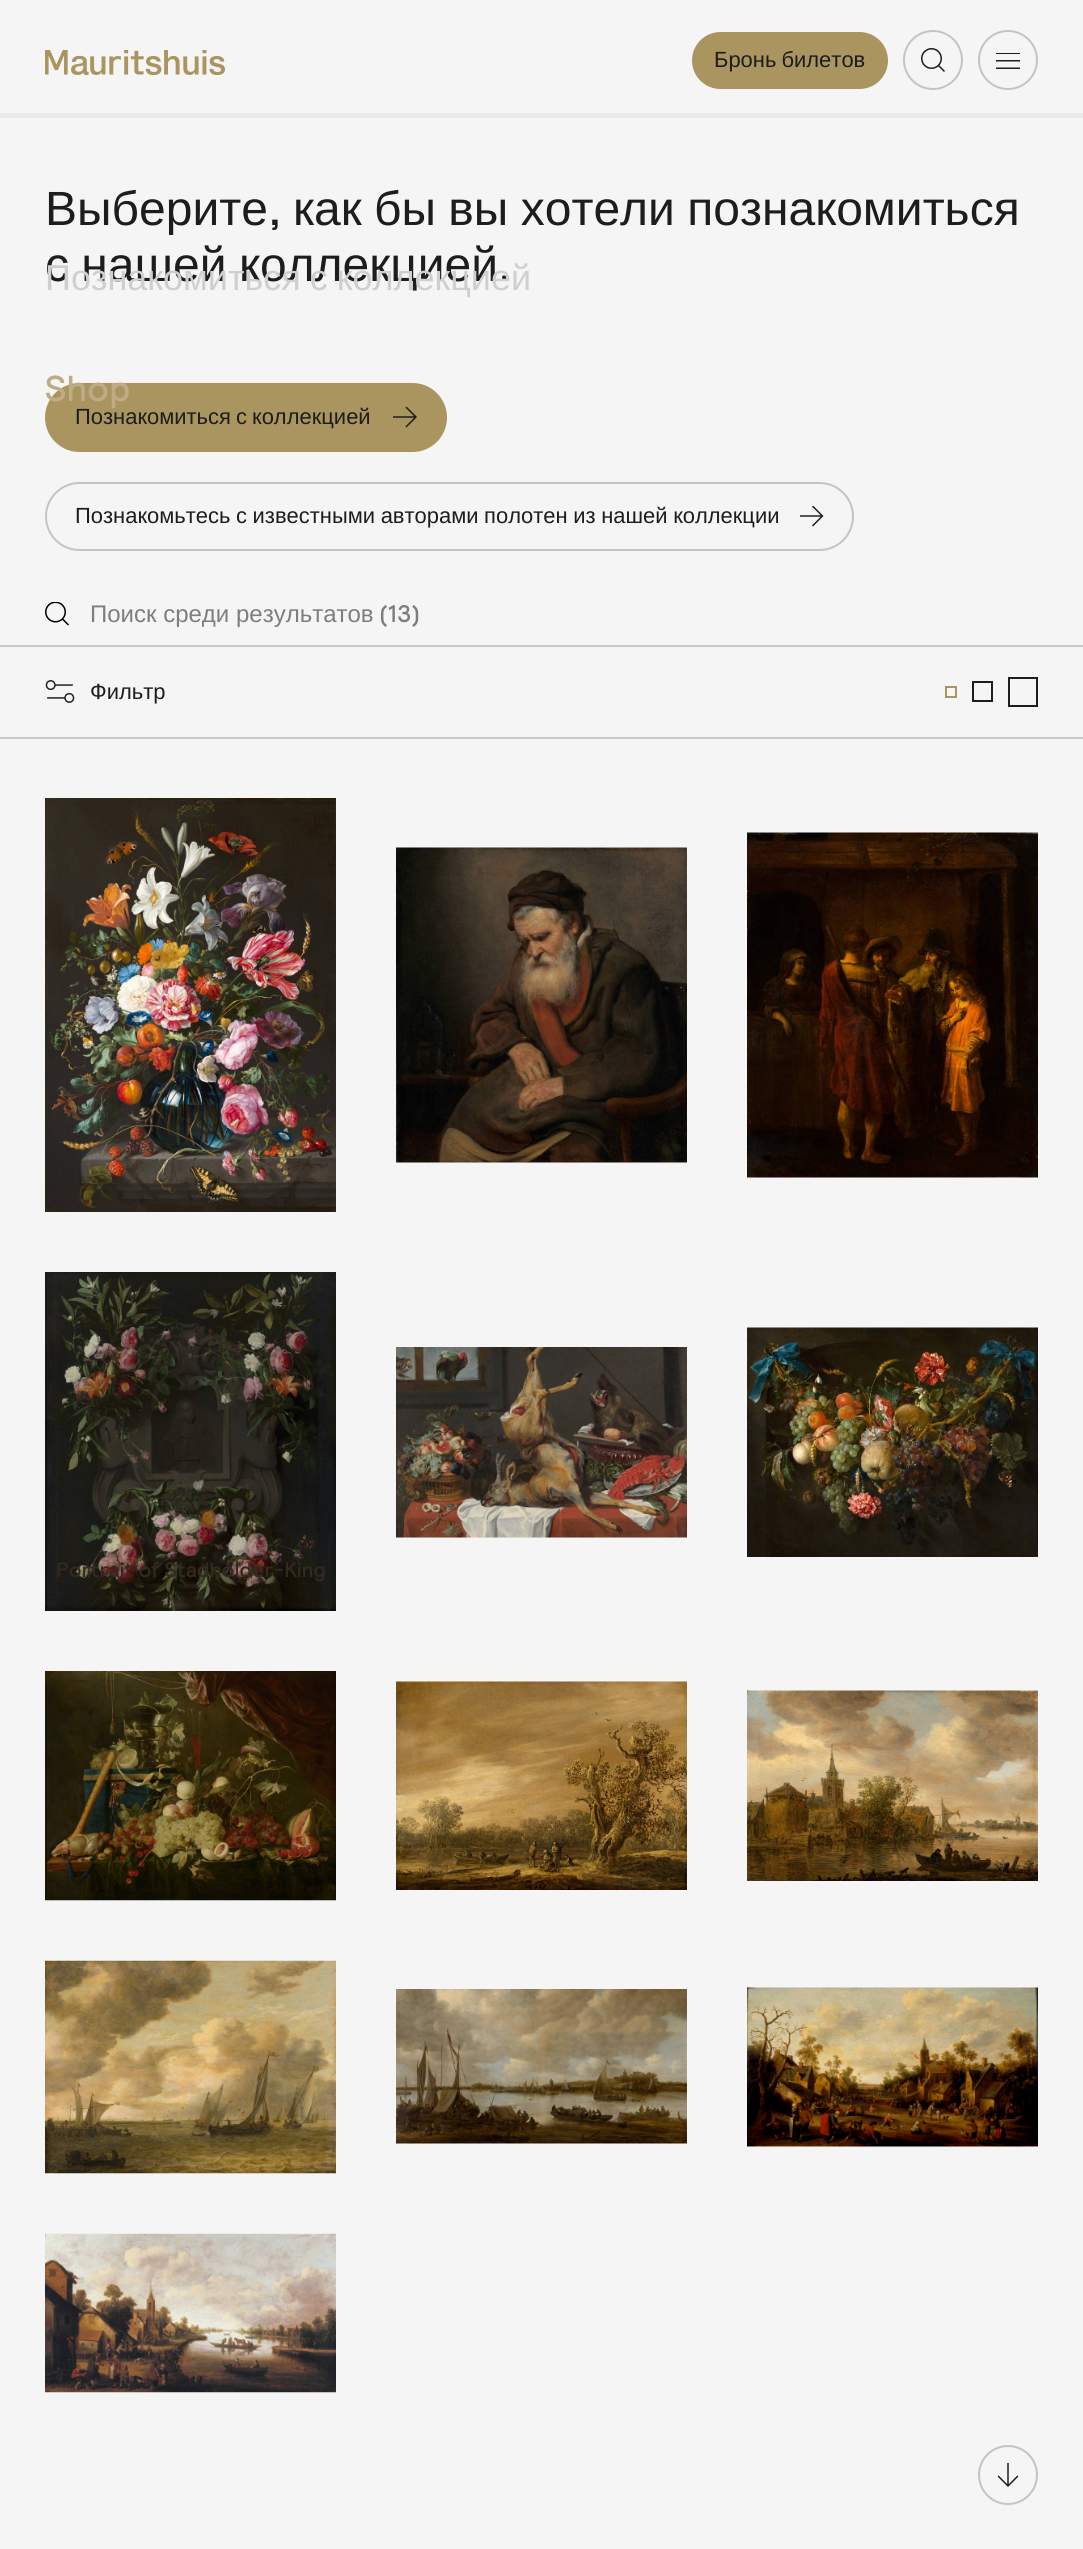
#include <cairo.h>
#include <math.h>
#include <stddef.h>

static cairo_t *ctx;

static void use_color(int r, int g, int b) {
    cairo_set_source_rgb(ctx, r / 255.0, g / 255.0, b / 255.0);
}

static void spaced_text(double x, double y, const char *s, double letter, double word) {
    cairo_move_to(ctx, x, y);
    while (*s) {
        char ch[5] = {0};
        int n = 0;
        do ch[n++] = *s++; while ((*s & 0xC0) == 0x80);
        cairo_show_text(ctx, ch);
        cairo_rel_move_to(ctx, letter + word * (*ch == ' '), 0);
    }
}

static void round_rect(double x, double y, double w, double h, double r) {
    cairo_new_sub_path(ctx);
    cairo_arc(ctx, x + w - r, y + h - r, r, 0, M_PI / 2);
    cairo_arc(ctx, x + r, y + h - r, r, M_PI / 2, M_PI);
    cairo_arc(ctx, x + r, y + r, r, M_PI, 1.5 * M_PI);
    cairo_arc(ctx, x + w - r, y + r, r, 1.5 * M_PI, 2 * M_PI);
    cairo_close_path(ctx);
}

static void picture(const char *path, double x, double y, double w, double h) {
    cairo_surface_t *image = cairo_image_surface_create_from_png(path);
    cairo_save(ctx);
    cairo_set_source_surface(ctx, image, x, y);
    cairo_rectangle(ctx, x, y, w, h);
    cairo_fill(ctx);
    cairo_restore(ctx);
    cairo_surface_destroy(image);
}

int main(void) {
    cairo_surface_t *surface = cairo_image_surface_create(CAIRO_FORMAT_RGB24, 1083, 2549);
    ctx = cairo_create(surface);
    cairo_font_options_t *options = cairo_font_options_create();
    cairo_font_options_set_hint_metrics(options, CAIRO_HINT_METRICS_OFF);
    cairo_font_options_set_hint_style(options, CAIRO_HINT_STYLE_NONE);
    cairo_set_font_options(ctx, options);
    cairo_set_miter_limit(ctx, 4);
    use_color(245, 245, 245);
    cairo_paint(ctx);
    picture("img1.png", 45, 50, 180, 25);
    use_color(170, 148, 95);
    round_rect(692, 32, 196, 57, 28.5);
    cairo_fill(ctx);
    cairo_select_font_face(ctx, "Liberation Sans", CAIRO_FONT_SLANT_NORMAL, CAIRO_FONT_WEIGHT_NORMAL);
    cairo_set_font_size(ctx, 21.95);
    use_color(29, 29, 29);
    spaced_text(714, 67, "Бронь билетов", 0, -1);
    cairo_new_path(ctx);
    cairo_arc(ctx, 933, 60, 29, 0, 2 * M_PI);
    use_color(196, 196, 196);
    cairo_stroke(ctx);
    picture("img2.png", 921, 48, 24, 24);
    cairo_arc(ctx, 1008, 60, 29, 0, 2 * M_PI);
    cairo_stroke(ctx);
    picture("img3.png", 996, 53, 24, 16);
    cairo_set_font_size(ctx, 48);
    use_color(29, 29, 29);
    spaced_text(45, 281, "с нашей коллекцией", 0, -1);
    cairo_select_font_face(ctx, "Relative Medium", CAIRO_FONT_SLANT_NORMAL, CAIRO_FONT_WEIGHT_NORMAL);
    cairo_move_to(ctx, 498, 281);
    cairo_show_text(ctx, ".");
    cairo_select_font_face(ctx, "Liberation Sans", CAIRO_FONT_SLANT_NORMAL, CAIRO_FONT_WEIGHT_NORMAL);
    cairo_set_font_size(ctx, 36);
    use_color(207, 207, 207);
    spaced_text(45, 290, "Познакомиться с коллекцией", 0, -1);
    use_color(170, 148, 95);
    round_rect(45, 383, 402, 69, 34.5);
    cairo_fill(ctx);
    cairo_select_font_face(ctx, "Relative Medium", CAIRO_FONT_SLANT_NORMAL, CAIRO_FONT_WEIGHT_NORMAL);
    use_color(189, 172, 133);
    cairo_move_to(ctx, 45, 401);
    cairo_show_text(ctx, "Shop");
    cairo_select_font_face(ctx, "Liberation Sans", CAIRO_FONT_SLANT_NORMAL, CAIRO_FONT_WEIGHT_NORMAL);
    cairo_set_font_size(ctx, 48);
    use_color(29, 29, 29);
    cairo_move_to(ctx, 45, 225);
    cairo_show_text(ctx, "Выберите");
    cairo_select_font_face(ctx, "Relative Medium", CAIRO_FONT_SLANT_NORMAL, CAIRO_FONT_WEIGHT_NORMAL);
    cairo_move_to(ctx, 268, 225);
    cairo_show_text(ctx, ",");
    cairo_select_font_face(ctx, "Liberation Sans", CAIRO_FONT_SLANT_NORMAL, CAIRO_FONT_WEIGHT_NORMAL);
    spaced_text(293, 225, "как бы вы хотели познакомиться", 0, -1);
    cairo_set_font_size(ctx, 21.95);
    spaced_text(75, 424, "Познакомиться с коллекцией", 0, -1);
    picture("img4.png", 393, 407, 24, 21);
    round_rect(46, 483, 807, 67, 33.5);
    use_color(196, 196, 196);
    cairo_stroke(ctx);
    use_color(29, 29, 29);
    spaced_text(75, 523, "Познакомьтесь с известными авторами полотен из нашей коллекции", 0, -0.5);
    picture("img5.png", 800, 506, 24, 21);
    use_color(233, 233, 233);
    cairo_rectangle(ctx, 0, 113, 1083, 5);
    cairo_fill(ctx);
    use_color(201, 201, 201);
    cairo_rectangle(ctx, 0, 737, 1083, 2);
    cairo_fill(ctx);
    cairo_rectangle(ctx, 0, 645, 1083, 2);
    cairo_fill(ctx);
    picture("img6.png", 45, 602, 24, 24);
    cairo_set_font_size(ctx, 24);
    use_color(126, 126, 126);
    cairo_move_to(ctx, 90, 622);
    cairo_show_text(ctx, "Поиск среди результатов");
    cairo_select_font_face(ctx, "Relative Medium", CAIRO_FONT_SLANT_NORMAL, CAIRO_FONT_WEIGHT_NORMAL);
    cairo_move_to(ctx, 379, 622);
    cairo_show_text(ctx, "(13)");
    picture("img7.png", 45, 680, 30, 23);
    cairo_select_font_face(ctx, "Liberation Sans", CAIRO_FONT_SLANT_NORMAL, CAIRO_FONT_WEIGHT_NORMAL);
    cairo_set_font_size(ctx, 21.95);
    use_color(29, 29, 29);
    cairo_move_to(ctx, 90, 699);
    cairo_show_text(ctx, "Фильтр");
    cairo_rectangle(ctx, 946, 687, 10, 10);
    use_color(170, 148, 95);
    cairo_stroke(ctx);
    cairo_rectangle(ctx, 973, 682, 19, 19);
    use_color(29, 29, 29);
    cairo_stroke(ctx);
    cairo_rectangle(ctx, 1009, 678, 28, 28);
    cairo_stroke(ctx);
    picture("img8.png", 45, 798, 291, 414);
    picture("img9.png", 396, 847, 291, 316);
    picture("img10.png", 747, 832, 291, 346);
    picture("img11.png", 396, 1347, 291, 191);
    picture("img12.png", 747, 1327, 291, 230);
    picture("img13.png", 45, 1272, 291, 339);
    cairo_select_font_face(ctx, "Relative Medium", CAIRO_FONT_SLANT_NORMAL, CAIRO_FONT_WEIGHT_NORMAL);
    cairo_set_font_size(ctx, 21);
    use_color(52, 41, 31);
    cairo_move_to(ctx, 56, 1577);
    cairo_show_text(ctx, "Portrait of Stadholder-King");
    use_color(32, 28, 16);
    cairo_move_to(ctx, 166, 1606);
    cairo_show_text(ctx, "I");
    picture("img14.png", 45, 1671, 291, 230);
    picture("img15.png", 396, 1681, 291, 209);
    picture("img16.png", 747, 1690, 291, 191);
    picture("img17.png", 45, 1960, 291, 214);
    picture("img18.png", 396, 1989, 291, 155);
    picture("img19.png", 747, 1987, 291, 160);
    picture("img20.png", 45, 2233, 291, 160);
    cairo_arc(ctx, 1008, 2475, 29, 0, 2 * M_PI);
    use_color(196, 196, 196);
    cairo_stroke(ctx);
    picture("img21.png", 997, 2463, 22, 24);
    cairo_surface_write_to_png(surface, "result.png");
    cairo_font_options_destroy(options);
    cairo_destroy(ctx);
    cairo_surface_destroy(surface);
    return 0;
}
